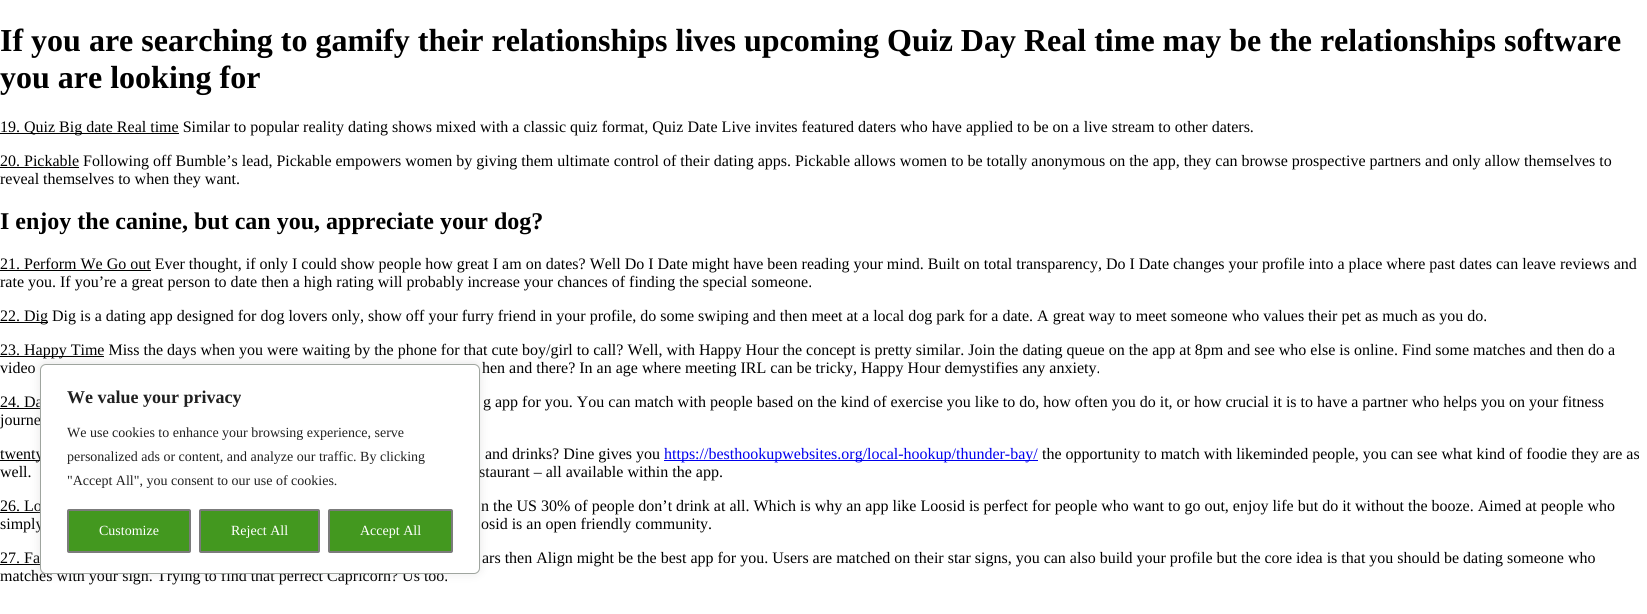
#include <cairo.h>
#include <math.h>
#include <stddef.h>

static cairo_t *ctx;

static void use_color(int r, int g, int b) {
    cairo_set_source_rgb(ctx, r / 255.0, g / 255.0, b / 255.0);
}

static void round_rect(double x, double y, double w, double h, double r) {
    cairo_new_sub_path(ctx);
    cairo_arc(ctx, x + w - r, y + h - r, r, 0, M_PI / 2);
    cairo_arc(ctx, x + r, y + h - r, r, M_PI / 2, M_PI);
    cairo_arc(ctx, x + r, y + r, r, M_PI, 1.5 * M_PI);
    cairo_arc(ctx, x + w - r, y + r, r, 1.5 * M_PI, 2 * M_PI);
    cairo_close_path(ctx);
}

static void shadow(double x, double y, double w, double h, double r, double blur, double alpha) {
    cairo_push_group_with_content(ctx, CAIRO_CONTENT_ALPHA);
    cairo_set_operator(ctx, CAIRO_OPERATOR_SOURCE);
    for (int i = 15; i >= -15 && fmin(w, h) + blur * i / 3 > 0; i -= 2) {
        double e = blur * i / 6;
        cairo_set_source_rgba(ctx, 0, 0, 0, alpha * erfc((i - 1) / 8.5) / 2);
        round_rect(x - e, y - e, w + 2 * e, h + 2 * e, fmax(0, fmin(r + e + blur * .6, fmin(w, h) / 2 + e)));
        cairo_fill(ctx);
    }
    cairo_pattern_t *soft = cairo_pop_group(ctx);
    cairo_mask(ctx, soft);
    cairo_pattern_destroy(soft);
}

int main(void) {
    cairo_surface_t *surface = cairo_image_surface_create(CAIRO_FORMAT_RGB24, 1647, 614);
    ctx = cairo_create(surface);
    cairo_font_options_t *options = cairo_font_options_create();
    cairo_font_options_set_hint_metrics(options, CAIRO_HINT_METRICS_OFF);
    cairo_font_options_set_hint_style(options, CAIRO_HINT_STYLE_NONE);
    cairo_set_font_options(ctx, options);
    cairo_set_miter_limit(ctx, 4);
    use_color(255, 255, 255);
    cairo_paint(ctx);
    cairo_select_font_face(ctx, "Liberation Serif", CAIRO_FONT_SLANT_NORMAL, CAIRO_FONT_WEIGHT_BOLD);
    cairo_set_font_size(ctx, 32);
    use_color(0, 0, 0);
    cairo_move_to(ctx, 0, 51);
    cairo_show_text(ctx, "If you are searching to gamify their relationships lives upcoming Quiz Day Real time may be the relationships software");
    cairo_move_to(ctx, 0, 88);
    cairo_show_text(ctx, "you are looking for");
    cairo_rectangle(ctx, 0, 133, 179, 1);
    cairo_fill(ctx);
    cairo_select_font_face(ctx, "Liberation Serif", CAIRO_FONT_SLANT_NORMAL, CAIRO_FONT_WEIGHT_NORMAL);
    cairo_set_font_size(ctx, 16);
    cairo_move_to(ctx, 0, 132);
    cairo_show_text(ctx, "19. Quiz Big date Real time Similar to popular reality dating shows mixed with a classic quiz format, Quiz Date Live invites featured daters who have applied to be on a live stream to other daters.");
    cairo_rectangle(ctx, 0, 167, 79, 1);
    cairo_fill(ctx);
    cairo_move_to(ctx, 0, 166);
    cairo_show_text(ctx, "20. Pickable Following off Bumble’s lead, Pickable empowers women by giving them ultimate control of their dating apps. Pickable allows women to be totally anonymous on the app, they can browse prospective partners and only allow themselves to");
    cairo_move_to(ctx, 0, 184);
    cairo_show_text(ctx, "reveal themselves to when they want.");
    cairo_select_font_face(ctx, "Liberation Serif", CAIRO_FONT_SLANT_NORMAL, CAIRO_FONT_WEIGHT_BOLD);
    cairo_set_font_size(ctx, 24);
    cairo_move_to(ctx, 0, 229);
    cairo_show_text(ctx, "I enjoy the canine, but can you, appreciate your dog?");
    cairo_rectangle(ctx, 0, 270, 151, 1);
    cairo_fill(ctx);
    cairo_select_font_face(ctx, "Liberation Serif", CAIRO_FONT_SLANT_NORMAL, CAIRO_FONT_WEIGHT_NORMAL);
    cairo_set_font_size(ctx, 16);
    cairo_move_to(ctx, 0, 269);
    cairo_show_text(ctx, "21. Perform We Go out Ever thought, if only I could show people how great I am on dates? Well Do I Date might have been reading your mind. Built on total transparency, Do I Date changes your profile into a place where past dates can leave reviews and");
    cairo_move_to(ctx, 0, 287);
    cairo_show_text(ctx, "rate you. If you’re a great person to date then a high rating will probably increase your chances of finding the special someone.");
    cairo_rectangle(ctx, 0, 322, 48, 1);
    cairo_fill(ctx);
    cairo_move_to(ctx, 0, 321);
    cairo_show_text(ctx, "22. Dig Dig is a dating app designed for dog lovers only, show off your furry friend in your profile, do some swiping and then meet at a local dog park for a date. A great way to meet someone who values their pet as much as you do.");
    cairo_rectangle(ctx, 0, 356, 104, 1);
    cairo_fill(ctx);
    cairo_move_to(ctx, 0, 355);
    cairo_show_text(ctx, "23. Happy Time Miss the days when you were waiting by the phone for that cute boy/girl to call? Well, with Happy Hour the concept is pretty similar. Join the dating queue on the app at 8pm and see who else is online. Find some matches and then do a");
    cairo_move_to(ctx, 0, 373);
    cairo_show_text(ctx, "video");
    cairo_move_to(ctx, 482, 373);
    cairo_show_text(ctx, "hen and there? In an age where meeting IRL can be tricky, Happy Hour demystifies any anxiety.");
    cairo_move_to(ctx, 0, 407);
    cairo_show_text(ctx, "24. Da");
    cairo_rectangle(ctx, 0, 408, 40, 1);
    cairo_fill(ctx);
    cairo_move_to(ctx, 483, 407);
    cairo_show_text(ctx, "g app for you. You can match with people based on the kind of exercise you like to do, how often you do it, or how crucial it is to have a partner who helps you on your fitness");
    cairo_move_to(ctx, 0, 425);
    cairo_show_text(ctx, "journe");
    cairo_rectangle(ctx, 0, 460, 40, 1);
    cairo_fill(ctx);
    cairo_move_to(ctx, 0, 459);
    cairo_show_text(ctx, "twenty");
    cairo_move_to(ctx, 485, 459);
    cairo_show_text(ctx, "and drinks? Dine gives you");
    use_color(0, 0, 238);
    cairo_rectangle(ctx, 664, 460, 374, 1);
    cairo_fill(ctx);
    cairo_move_to(ctx, 664, 459);
    cairo_show_text(ctx, "https://besthookupwebsites.org/local-hookup/thunder-bay/");
    use_color(0, 0, 0);
    cairo_move_to(ctx, 1042, 459);
    cairo_show_text(ctx, "the opportunity to match with likeminded people, you can see what kind of foodie they are as");
    cairo_move_to(ctx, 0, 477);
    cairo_show_text(ctx, "well.");
    cairo_move_to(ctx, 479, 477);
    cairo_show_text(ctx, "staurant – all available within the app.");
    cairo_move_to(ctx, 0, 511);
    cairo_show_text(ctx, "26. Lo");
    cairo_rectangle(ctx, 0, 512, 40, 1);
    cairo_fill(ctx);
    cairo_move_to(ctx, 481, 511);
    cairo_show_text(ctx, "n the US 30% of people don’t drink at all. Which is why an app like Loosid is perfect for people who want to go out, enjoy life but do it without the booze. Aimed at people who");
    cairo_move_to(ctx, 0, 529);
    cairo_show_text(ctx, "simply");
    cairo_move_to(ctx, 481, 529);
    cairo_show_text(ctx, "osid is an open friendly community.");
    cairo_move_to(ctx, 0, 563);
    cairo_show_text(ctx, "27. Fa");
    cairo_rectangle(ctx, 0, 564, 40, 1);
    cairo_fill(ctx);
    cairo_move_to(ctx, 482, 563);
    cairo_show_text(ctx, "ars then Align might be the best app for you. Users are matched on their star signs, you can also build your profile but the core idea is that you should be dating someone who");
    cairo_move_to(ctx, 0, 581);
    cairo_show_text(ctx, "matches with your sign. Trying to find that perfect Capricorn? Us too.");
    use_color(172, 171, 171);
    shadow(40, 363, 440, 210, 6, 5, 0.3);
    use_color(255, 255, 255);
    round_rect(40.5, 364.5, 439, 209, 5.5);
    cairo_fill_preserve(ctx);
    use_color(159, 165, 159);
    cairo_set_line_width(ctx, 1);
    cairo_stroke(ctx);
    cairo_select_font_face(ctx, "Liberation Serif", CAIRO_FONT_SLANT_NORMAL, CAIRO_FONT_WEIGHT_BOLD);
    cairo_set_font_size(ctx, 18);
    use_color(33, 33, 33);
    cairo_move_to(ctx, 67, 403);
    cairo_show_text(ctx, "We value your privacy");
    cairo_select_font_face(ctx, "Liberation Serif", CAIRO_FONT_SLANT_NORMAL, CAIRO_FONT_WEIGHT_NORMAL);
    cairo_set_font_size(ctx, 14);
    cairo_move_to(ctx, 67, 437);
    cairo_show_text(ctx, "We use cookies to enhance your browsing experience, serve");
    cairo_move_to(ctx, 67, 461);
    cairo_show_text(ctx, "personalized ads or content, and analyze our traffic. By clicking");
    cairo_move_to(ctx, 67, 485);
    cairo_show_text(ctx, "\"Accept All\", you consent to our use of cookies.");
    use_color(67, 152, 31);
    round_rect(68, 510, 122, 42, 1);
    cairo_fill_preserve(ctx);
    use_color(123, 123, 123);
    cairo_set_line_width(ctx, 2);
    cairo_stroke(ctx);
    use_color(255, 255, 255);
    cairo_move_to(ctx, 99, 535);
    cairo_show_text(ctx, "Customize");
    use_color(67, 152, 31);
    round_rect(200, 510, 119, 42, 1);
    cairo_fill_preserve(ctx);
    use_color(123, 123, 123);
    cairo_stroke(ctx);
    use_color(255, 255, 255);
    cairo_move_to(ctx, 231, 535);
    cairo_show_text(ctx, "Reject All");
    use_color(67, 152, 31);
    round_rect(329, 510, 123, 42, 1);
    cairo_fill_preserve(ctx);
    use_color(123, 123, 123);
    cairo_stroke(ctx);
    use_color(255, 255, 255);
    cairo_move_to(ctx, 360, 535);
    cairo_show_text(ctx, "Accept All");
    cairo_surface_write_to_png(surface, "result.png");
    cairo_font_options_destroy(options);
    cairo_destroy(ctx);
    cairo_surface_destroy(surface);
    return 0;
}
